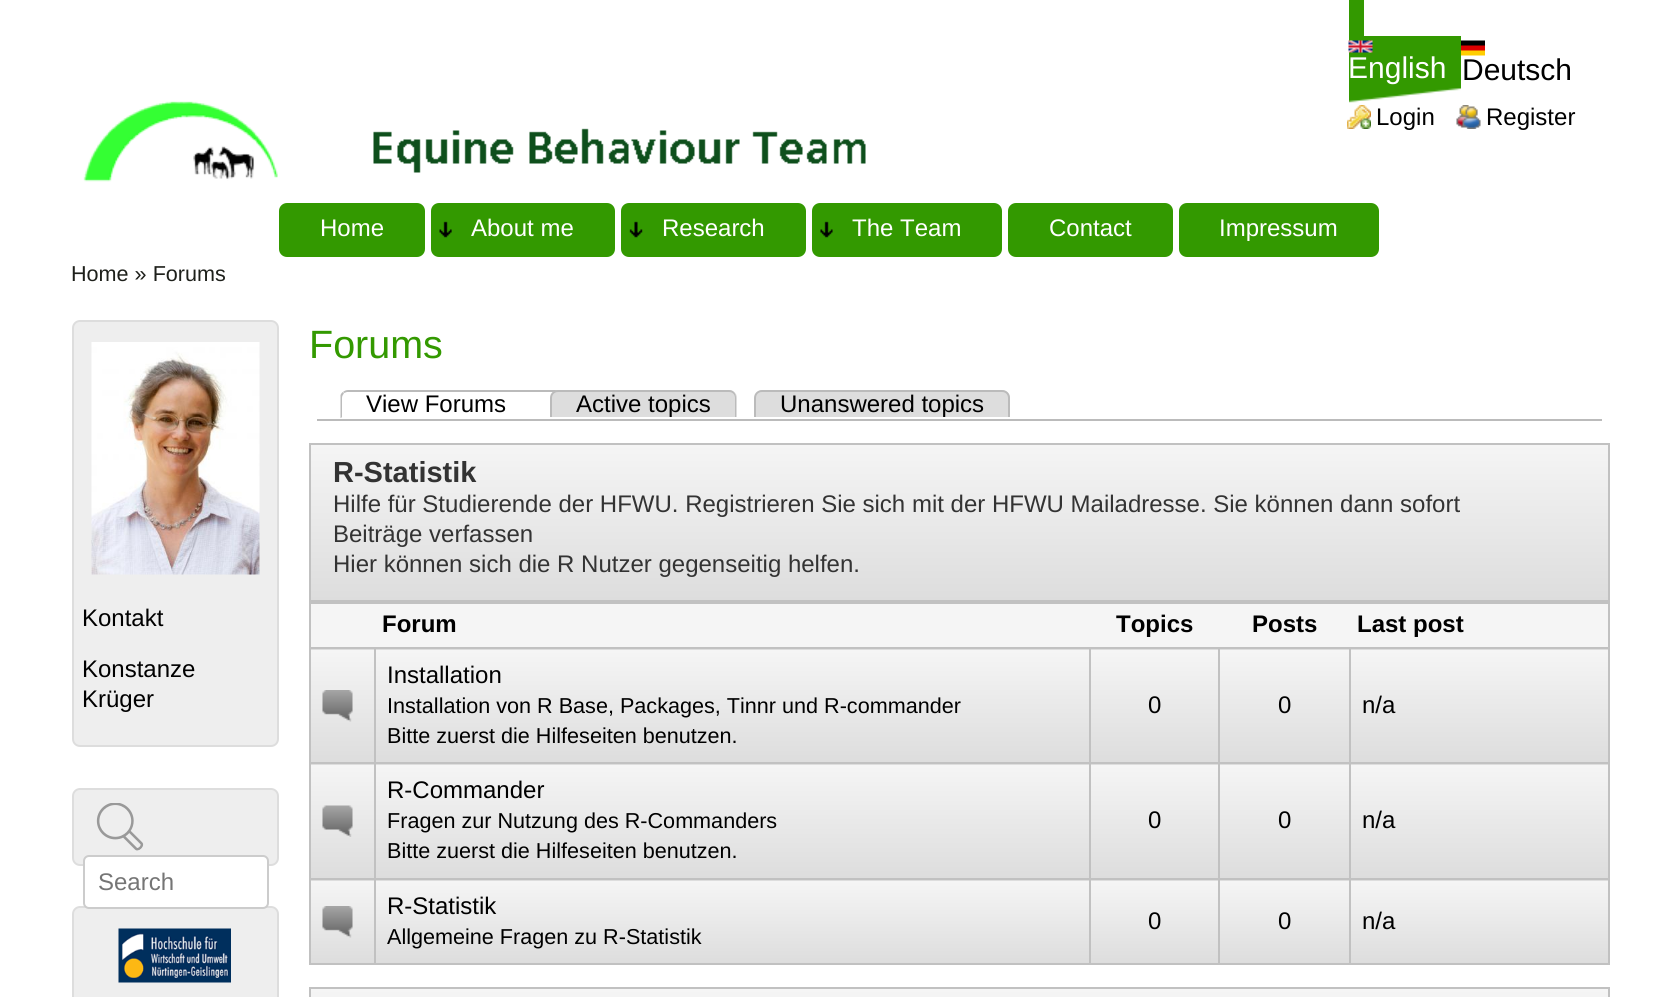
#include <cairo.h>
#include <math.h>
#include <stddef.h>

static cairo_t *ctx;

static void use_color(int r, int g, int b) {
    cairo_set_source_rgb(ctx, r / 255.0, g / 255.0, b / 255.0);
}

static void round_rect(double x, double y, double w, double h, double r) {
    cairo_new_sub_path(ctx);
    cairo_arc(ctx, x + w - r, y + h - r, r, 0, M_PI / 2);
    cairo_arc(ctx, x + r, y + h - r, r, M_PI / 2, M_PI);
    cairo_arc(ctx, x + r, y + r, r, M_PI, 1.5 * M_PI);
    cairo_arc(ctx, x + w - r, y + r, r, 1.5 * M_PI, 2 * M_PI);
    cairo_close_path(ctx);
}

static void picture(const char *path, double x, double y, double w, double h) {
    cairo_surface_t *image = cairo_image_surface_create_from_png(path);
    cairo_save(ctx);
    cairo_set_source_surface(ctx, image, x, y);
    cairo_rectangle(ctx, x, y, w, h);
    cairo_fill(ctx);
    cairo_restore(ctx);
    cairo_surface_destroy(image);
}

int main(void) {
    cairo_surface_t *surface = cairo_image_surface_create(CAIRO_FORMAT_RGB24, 1657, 997);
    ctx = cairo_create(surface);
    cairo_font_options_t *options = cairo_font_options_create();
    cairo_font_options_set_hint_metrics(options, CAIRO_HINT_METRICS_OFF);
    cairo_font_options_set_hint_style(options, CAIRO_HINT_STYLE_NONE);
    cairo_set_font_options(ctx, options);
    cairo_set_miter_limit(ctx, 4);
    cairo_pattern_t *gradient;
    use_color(255, 255, 255);
    cairo_paint(ctx);
    picture("img1.png", 1349, 0, 112, 103);
    picture("img2.png", 1348, 40, 25, 13);
    cairo_select_font_face(ctx, "Liberation Sans", CAIRO_FONT_SLANT_NORMAL, CAIRO_FONT_WEIGHT_NORMAL);
    cairo_set_font_size(ctx, 30);
    use_color(255, 255, 255);
    cairo_move_to(ctx, 1348, 78);
    cairo_show_text(ctx, "English");
    picture("img3.png", 1461, 40, 24, 16);
    use_color(0, 0, 0);
    cairo_move_to(ctx, 1462, 80);
    cairo_show_text(ctx, "Deutsch");
    picture("img4.png", 83, 101, 783, 81);
    picture("img5.png", 1347, 105, 24, 24);
    cairo_set_font_size(ctx, 24);
    cairo_move_to(ctx, 1376, 125);
    cairo_show_text(ctx, "Login");
    picture("img6.png", 1456, 105, 25, 24);
    cairo_move_to(ctx, 1486, 125);
    cairo_show_text(ctx, "Register");
    use_color(51, 153, 0);
    round_rect(279, 203, 146, 54, 8);
    cairo_fill(ctx);
    use_color(255, 255, 255);
    cairo_move_to(ctx, 320, 236);
    cairo_show_text(ctx, "Home");
    use_color(51, 153, 0);
    round_rect(431, 203, 184, 54, 8);
    cairo_fill(ctx);
    picture("img7.png", 439, 221, 13, 17);
    use_color(255, 255, 255);
    cairo_move_to(ctx, 471, 236);
    cairo_show_text(ctx, "About me");
    use_color(51, 153, 0);
    round_rect(621, 203, 185, 54, 8);
    cairo_fill(ctx);
    picture("img8.png", 629, 221, 14, 17);
    use_color(255, 255, 255);
    cairo_move_to(ctx, 662, 236);
    cairo_show_text(ctx, "Research");
    use_color(51, 153, 0);
    round_rect(812, 203, 190, 54, 8);
    cairo_fill(ctx);
    picture("img9.png", 820, 221, 13, 17);
    use_color(255, 255, 255);
    cairo_move_to(ctx, 852, 236);
    cairo_show_text(ctx, "The Team");
    use_color(51, 153, 0);
    round_rect(1008, 203, 165, 54, 8);
    cairo_fill(ctx);
    use_color(255, 255, 255);
    cairo_move_to(ctx, 1049, 236);
    cairo_show_text(ctx, "Contact");
    use_color(51, 153, 0);
    round_rect(1179, 203, 200, 54, 8);
    cairo_fill(ctx);
    use_color(255, 255, 255);
    cairo_move_to(ctx, 1219, 236);
    cairo_show_text(ctx, "Impressum");
    cairo_set_font_size(ctx, 21.6);
    use_color(30, 32, 27);
    cairo_move_to(ctx, 71, 281);
    cairo_show_text(ctx, "Home » Forums");
    use_color(238, 238, 238);
    round_rect(73, 321, 205, 425, 7);
    cairo_fill_preserve(ctx);
    use_color(221, 221, 221);
    cairo_stroke(ctx);
    picture("img10.png", 91, 342, 169, 233);
    cairo_set_font_size(ctx, 24);
    use_color(0, 0, 0);
    cairo_move_to(ctx, 82, 626);
    cairo_show_text(ctx, "Kontakt");
    cairo_move_to(ctx, 82, 677);
    cairo_show_text(ctx, "Konstanze");
    cairo_move_to(ctx, 82, 707);
    cairo_show_text(ctx, "Krüger");
    use_color(238, 238, 238);
    round_rect(73, 789, 205, 76, 7);
    cairo_fill_preserve(ctx);
    use_color(221, 221, 221);
    cairo_stroke(ctx);
    picture("img11.png", 96, 803, 48, 48);
    use_color(238, 238, 238);
    round_rect(73, 907, 205, 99, 7);
    cairo_fill_preserve(ctx);
    use_color(221, 221, 221);
    cairo_stroke(ctx);
    use_color(255, 255, 255);
    round_rect(84, 856, 184, 52, 5);
    cairo_fill_preserve(ctx);
    use_color(204, 204, 204);
    cairo_stroke(ctx);
    use_color(117, 117, 117);
    cairo_move_to(ctx, 98, 890);
    cairo_show_text(ctx, "Search");
    picture("img12.png", 118, 928, 113, 55);
    cairo_set_font_size(ctx, 39.5);
    use_color(51, 153, 0);
    cairo_move_to(ctx, 309, 358);
    cairo_show_text(ctx, "Forums");
    use_color(187, 187, 187);
    cairo_rectangle(ctx, 317, 419, 1285, 2);
    cairo_fill(ctx);
    cairo_set_font_size(ctx, 24);
    use_color(0, 0, 0);
    cairo_move_to(ctx, 366, 412);
    cairo_show_text(ctx, "View Forums");
    use_color(187, 187, 187);
    cairo_new_path(ctx);
    cairo_move_to(ctx, 348, 390);
    cairo_curve_to(ctx, 346, 390, 344, 391, 343, 392);
    cairo_line_to(ctx, 344, 393);
    cairo_line_to(ctx, 347, 392);
    cairo_line_to(ctx, 506, 392);
    cairo_line_to(ctx, 506, 390);
    cairo_close_path(ctx);
    cairo_fill(ctx);
    cairo_new_path(ctx);
    cairo_move_to(ctx, 340.5, 395);
    cairo_curve_to(ctx, 341, 394, 341.5, 393, 342.5, 392);
    cairo_line_to(ctx, 344, 393.5);
    cairo_curve_to(ctx, 343, 394.5, 342, 396, 342, 398);
    cairo_line_to(ctx, 342, 417);
    cairo_line_to(ctx, 341, 418);
    cairo_line_to(ctx, 340.5, 418);
    cairo_close_path(ctx);
    cairo_fill(ctx);
    cairo_new_path(ctx);
    cairo_move_to(ctx, 506, 390);
    cairo_line_to(ctx, 645, 390);
    cairo_curve_to(ctx, 646, 390, 647, 390, 648, 391);
    cairo_line_to(ctx, 647, 392);
    cairo_line_to(ctx, 506, 392);
    cairo_close_path(ctx);
    cairo_fill(ctx);
    use_color(221, 221, 221);
    cairo_new_path(ctx);
    cairo_move_to(ctx, 559, 390);
    cairo_line_to(ctx, 729, 390);
    cairo_curve_to(ctx, 733.5, 390, 737, 393.5, 737, 398);
    cairo_line_to(ctx, 737, 417);
    cairo_line_to(ctx, 551, 417);
    cairo_line_to(ctx, 551, 398);
    cairo_curve_to(ctx, 551, 393.5, 554.5, 390, 559, 390);
    cairo_close_path(ctx);
    cairo_fill(ctx);
    use_color(187, 187, 187);
    cairo_set_fill_rule(ctx, CAIRO_FILL_RULE_EVEN_ODD);
    cairo_new_path(ctx);
    cairo_move_to(ctx, 558, 390);
    cairo_line_to(ctx, 729, 390);
    cairo_curve_to(ctx, 733, 390, 736, 393, 736, 398);
    cairo_line_to(ctx, 736, 417);
    cairo_line_to(ctx, 550, 417);
    cairo_line_to(ctx, 550, 398);
    cairo_curve_to(ctx, 550, 393, 554, 390, 558, 390);
    cairo_close_path(ctx);
    cairo_move_to(ctx, 558, 392);
    cairo_line_to(ctx, 729, 392);
    cairo_curve_to(ctx, 732, 392, 735, 394, 735, 398);
    cairo_line_to(ctx, 735, 417);
    cairo_line_to(ctx, 552, 417);
    cairo_line_to(ctx, 552, 398);
    cairo_curve_to(ctx, 552, 394, 555, 392, 558, 392);
    cairo_close_path(ctx);
    cairo_fill(ctx);
    use_color(0, 0, 0);
    cairo_move_to(ctx, 576, 412);
    cairo_show_text(ctx, "Active topics");
    use_color(221, 221, 221);
    cairo_new_path(ctx);
    cairo_move_to(ctx, 763, 390);
    cairo_line_to(ctx, 1002, 390);
    cairo_curve_to(ctx, 1006.5, 390, 1010, 393.5, 1010, 398);
    cairo_line_to(ctx, 1010, 417);
    cairo_line_to(ctx, 755, 417);
    cairo_line_to(ctx, 755, 398);
    cairo_curve_to(ctx, 755, 393.5, 758.5, 390, 763, 390);
    cairo_close_path(ctx);
    cairo_fill(ctx);
    use_color(187, 187, 187);
    cairo_new_path(ctx);
    cairo_move_to(ctx, 762, 390);
    cairo_line_to(ctx, 1002, 390);
    cairo_curve_to(ctx, 1006, 390, 1010, 393, 1010, 398);
    cairo_line_to(ctx, 1010, 417);
    cairo_line_to(ctx, 754, 417);
    cairo_line_to(ctx, 754, 398);
    cairo_curve_to(ctx, 754, 393, 758, 390, 762, 390);
    cairo_close_path(ctx);
    cairo_move_to(ctx, 762, 392);
    cairo_line_to(ctx, 1002, 392);
    cairo_curve_to(ctx, 1005, 392, 1008, 394, 1008, 398);
    cairo_line_to(ctx, 1008, 417);
    cairo_line_to(ctx, 756, 417);
    cairo_line_to(ctx, 756, 398);
    cairo_curve_to(ctx, 756, 394, 759, 392, 762, 392);
    cairo_close_path(ctx);
    cairo_fill(ctx);
    use_color(0, 0, 0);
    cairo_move_to(ctx, 780, 412);
    cairo_show_text(ctx, "Unanswered topics");
    gradient = cairo_pattern_create_linear(311, 444, 311, 600);
    cairo_pattern_add_color_stop_rgba(gradient, 0, 0.961, 0.961, 0.961, 1);
    cairo_pattern_add_color_stop_rgba(gradient, 1, 0.867, 0.867, 0.867, 1);
    cairo_set_source(ctx, gradient);
    cairo_pattern_destroy(gradient);
    cairo_rectangle(ctx, 311, 445, 1297, 155);
    cairo_fill(ctx);
    cairo_rectangle(ctx, 310, 444, 1299, 157);
    use_color(193, 193, 193);
    cairo_stroke(ctx);
    cairo_select_font_face(ctx, "Liberation Sans", CAIRO_FONT_SLANT_NORMAL, CAIRO_FONT_WEIGHT_BOLD);
    cairo_set_font_size(ctx, 29);
    use_color(51, 51, 51);
    cairo_move_to(ctx, 333, 482);
    cairo_show_text(ctx, "R-Statistik");
    cairo_select_font_face(ctx, "Liberation Sans", CAIRO_FONT_SLANT_NORMAL, CAIRO_FONT_WEIGHT_NORMAL);
    cairo_set_font_size(ctx, 24);
    cairo_move_to(ctx, 333, 512);
    cairo_show_text(ctx, "Hilfe für Studierende der HFWU. Registrieren Sie sich mit der HFWU Mailadresse. Sie können dann sofort");
    cairo_move_to(ctx, 333, 542);
    cairo_show_text(ctx, "Beiträge verfassen");
    cairo_move_to(ctx, 333, 572);
    cairo_show_text(ctx, "Hier können sich die R Nutzer gegenseitig helfen.");
    use_color(193, 193, 193);
    cairo_rectangle(ctx, 309, 602, 1301, 2);
    cairo_fill(ctx);
    gradient = cairo_pattern_create_linear(309, 537, 309, 650);
    cairo_pattern_add_color_stop_rgba(gradient, 0, 0.961, 0.961, 0.961, 1);
    cairo_pattern_add_color_stop_rgba(gradient, 1, 0.867, 0.867, 0.867, 1);
    cairo_set_source(ctx, gradient);
    cairo_pattern_destroy(gradient);
    cairo_rectangle(ctx, 309, 649, 1301, 1);
    cairo_fill(ctx);
    gradient = cairo_pattern_create_linear(309, 653, 309, 765);
    cairo_pattern_add_color_stop_rgba(gradient, 0, 0.961, 0.961, 0.961, 1);
    cairo_pattern_add_color_stop_rgba(gradient, 1, 0.867, 0.867, 0.867, 1);
    cairo_set_source(ctx, gradient);
    cairo_pattern_destroy(gradient);
    cairo_rectangle(ctx, 309, 764, 1301, 1);
    cairo_fill(ctx);
    use_color(193, 193, 193);
    cairo_rectangle(ctx, 1608, 602, 2, 276);
    cairo_fill(ctx);
    gradient = cairo_pattern_create_linear(309, 798, 309, 881);
    cairo_pattern_add_color_stop_rgba(gradient, 0, 0.961, 0.961, 0.961, 1);
    cairo_pattern_add_color_stop_rgba(gradient, 1, 0.867, 0.867, 0.867, 1);
    cairo_set_source(ctx, gradient);
    cairo_pattern_destroy(gradient);
    cairo_rectangle(ctx, 309, 880, 1301, 1);
    cairo_fill(ctx);
    use_color(193, 193, 193);
    cairo_rectangle(ctx, 309, 602, 2, 363);
    cairo_fill(ctx);
    use_color(245, 245, 245);
    cairo_rectangle(ctx, 311, 604, 1297, 43);
    cairo_fill(ctx);
    cairo_select_font_face(ctx, "Liberation Sans", CAIRO_FONT_SLANT_NORMAL, CAIRO_FONT_WEIGHT_BOLD);
    use_color(0, 0, 0);
    cairo_move_to(ctx, 382, 632);
    cairo_show_text(ctx, "Forum");
    cairo_move_to(ctx, 1116, 632);
    cairo_show_text(ctx, "Topics");
    cairo_move_to(ctx, 1252, 632);
    cairo_show_text(ctx, "Posts");
    cairo_move_to(ctx, 1357, 632);
    cairo_show_text(ctx, "Last post");
    gradient = cairo_pattern_create_linear(309, 650, 309, 762);
    cairo_pattern_add_color_stop_rgba(gradient, 0, 0.961, 0.961, 0.961, 1);
    cairo_pattern_add_color_stop_rgba(gradient, 1, 0.867, 0.867, 0.867, 1);
    cairo_set_source(ctx, gradient);
    cairo_pattern_destroy(gradient);
    cairo_rectangle(ctx, 311, 650, 1297, 112);
    cairo_fill(ctx);
    use_color(193, 193, 193);
    cairo_rectangle(ctx, 309, 647, 1301, 2);
    cairo_fill(ctx);
    picture("img13.png", 322, 690, 31, 32);
    cairo_rectangle(ctx, 1349, 762, 261, 2);
    cairo_fill(ctx);
    gradient = cairo_pattern_create_linear(309, 765, 309, 878);
    cairo_pattern_add_color_stop_rgba(gradient, 0, 0.961, 0.961, 0.961, 1);
    cairo_pattern_add_color_stop_rgba(gradient, 1, 0.867, 0.867, 0.867, 1);
    cairo_set_source(ctx, gradient);
    cairo_pattern_destroy(gradient);
    cairo_rectangle(ctx, 311, 765, 1297, 113);
    cairo_fill(ctx);
    use_color(193, 193, 193);
    cairo_rectangle(ctx, 1349, 878, 261, 2);
    cairo_fill(ctx);
    gradient = cairo_pattern_create_linear(309, 881, 309, 963);
    cairo_pattern_add_color_stop_rgba(gradient, 0, 0.961, 0.961, 0.961, 1);
    cairo_pattern_add_color_stop_rgba(gradient, 1, 0.867, 0.867, 0.867, 1);
    cairo_set_source(ctx, gradient);
    cairo_pattern_destroy(gradient);
    cairo_rectangle(ctx, 311, 881, 1297, 82);
    cairo_fill(ctx);
    use_color(193, 193, 193);
    cairo_rectangle(ctx, 1608, 878, 2, 87);
    cairo_fill(ctx);
    cairo_rectangle(ctx, 1349, 963, 261, 2);
    cairo_fill(ctx);
    cairo_rectangle(ctx, 1349, 878, 2, 87);
    cairo_fill(ctx);
    cairo_rectangle(ctx, 1218, 878, 132, 2);
    cairo_fill(ctx);
    cairo_rectangle(ctx, 1349, 762, 2, 117);
    cairo_fill(ctx);
    cairo_rectangle(ctx, 1218, 762, 132, 2);
    cairo_fill(ctx);
    cairo_rectangle(ctx, 1218, 963, 132, 2);
    cairo_fill(ctx);
    cairo_rectangle(ctx, 1218, 878, 2, 87);
    cairo_fill(ctx);
    cairo_rectangle(ctx, 1089, 878, 131, 2);
    cairo_fill(ctx);
    cairo_rectangle(ctx, 1218, 762, 2, 117);
    cairo_fill(ctx);
    cairo_rectangle(ctx, 1089, 762, 131, 2);
    cairo_fill(ctx);
    cairo_rectangle(ctx, 1089, 963, 131, 2);
    cairo_fill(ctx);
    cairo_rectangle(ctx, 1089, 878, 2, 87);
    cairo_fill(ctx);
    cairo_rectangle(ctx, 374, 878, 717, 2);
    cairo_fill(ctx);
    cairo_rectangle(ctx, 1089, 762, 2, 117);
    cairo_fill(ctx);
    cairo_rectangle(ctx, 374, 762, 717, 2);
    cairo_fill(ctx);
    cairo_rectangle(ctx, 374, 963, 717, 2);
    cairo_fill(ctx);
    cairo_rectangle(ctx, 374, 878, 2, 87);
    cairo_fill(ctx);
    cairo_rectangle(ctx, 309, 878, 66, 2);
    cairo_fill(ctx);
    cairo_rectangle(ctx, 374, 762, 2, 117);
    cairo_fill(ctx);
    cairo_rectangle(ctx, 309, 762, 66, 2);
    cairo_fill(ctx);
    cairo_rectangle(ctx, 374, 647, 2, 117);
    cairo_fill(ctx);
    cairo_select_font_face(ctx, "Liberation Sans", CAIRO_FONT_SLANT_NORMAL, CAIRO_FONT_WEIGHT_NORMAL);
    use_color(0, 0, 0);
    cairo_move_to(ctx, 387, 683);
    cairo_show_text(ctx, "Installation");
    cairo_set_font_size(ctx, 21.6);
    cairo_move_to(ctx, 387, 713);
    cairo_show_text(ctx, "Installation von R Base, Packages, Tinnr und R-commander");
    cairo_move_to(ctx, 387, 743);
    cairo_show_text(ctx, "Bitte zuerst die Hilfeseiten benutzen.");
    use_color(193, 193, 193);
    cairo_rectangle(ctx, 1089, 647, 2, 117);
    cairo_fill(ctx);
    cairo_set_font_size(ctx, 24);
    use_color(0, 0, 0);
    cairo_move_to(ctx, 1148, 713);
    cairo_show_text(ctx, "0");
    use_color(193, 193, 193);
    cairo_rectangle(ctx, 1218, 647, 2, 117);
    cairo_fill(ctx);
    use_color(0, 0, 0);
    cairo_move_to(ctx, 1278, 713);
    cairo_show_text(ctx, "0");
    use_color(193, 193, 193);
    cairo_rectangle(ctx, 1349, 647, 2, 117);
    cairo_fill(ctx);
    use_color(0, 0, 0);
    cairo_move_to(ctx, 1362, 713);
    cairo_show_text(ctx, "n/a");
    picture("img14.png", 322, 805, 31, 32);
    cairo_move_to(ctx, 387, 798);
    cairo_show_text(ctx, "R-Commander");
    cairo_set_font_size(ctx, 21.6);
    cairo_move_to(ctx, 387, 828);
    cairo_show_text(ctx, "Fragen zur Nutzung des R-Commanders");
    cairo_move_to(ctx, 387, 858);
    cairo_show_text(ctx, "Bitte zuerst die Hilfeseiten benutzen.");
    cairo_set_font_size(ctx, 24);
    cairo_move_to(ctx, 1148, 828);
    cairo_show_text(ctx, "0");
    cairo_move_to(ctx, 1278, 828);
    cairo_show_text(ctx, "0");
    cairo_move_to(ctx, 1362, 828);
    cairo_show_text(ctx, "n/a");
    use_color(193, 193, 193);
    cairo_rectangle(ctx, 309, 963, 66, 2);
    cairo_fill(ctx);
    picture("img15.png", 322, 906, 31, 32);
    use_color(0, 0, 0);
    cairo_move_to(ctx, 387, 914);
    cairo_show_text(ctx, "R-Statistik");
    cairo_set_font_size(ctx, 21.6);
    cairo_move_to(ctx, 387, 944);
    cairo_show_text(ctx, "Allgemeine Fragen zu R-Statistik");
    cairo_set_font_size(ctx, 24);
    cairo_move_to(ctx, 1148, 929);
    cairo_show_text(ctx, "0");
    cairo_move_to(ctx, 1278, 929);
    cairo_show_text(ctx, "0");
    cairo_move_to(ctx, 1362, 929);
    cairo_show_text(ctx, "n/a");
    gradient = cairo_pattern_create_linear(311, 989, 311, 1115);
    cairo_pattern_add_color_stop_rgba(gradient, 0, 0.961, 0.961, 0.961, 1);
    cairo_pattern_add_color_stop_rgba(gradient, 1, 0.867, 0.867, 0.867, 1);
    cairo_set_source(ctx, gradient);
    cairo_pattern_destroy(gradient);
    cairo_rectangle(ctx, 309, 989, 1301, 8);
    cairo_fill(ctx);
    cairo_rectangle(ctx, 310, 988, 1299, 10);
    use_color(193, 193, 193);
    cairo_stroke(ctx);
    cairo_surface_write_to_png(surface, "result.png");
    cairo_font_options_destroy(options);
    cairo_destroy(ctx);
    cairo_surface_destroy(surface);
    return 0;
}
